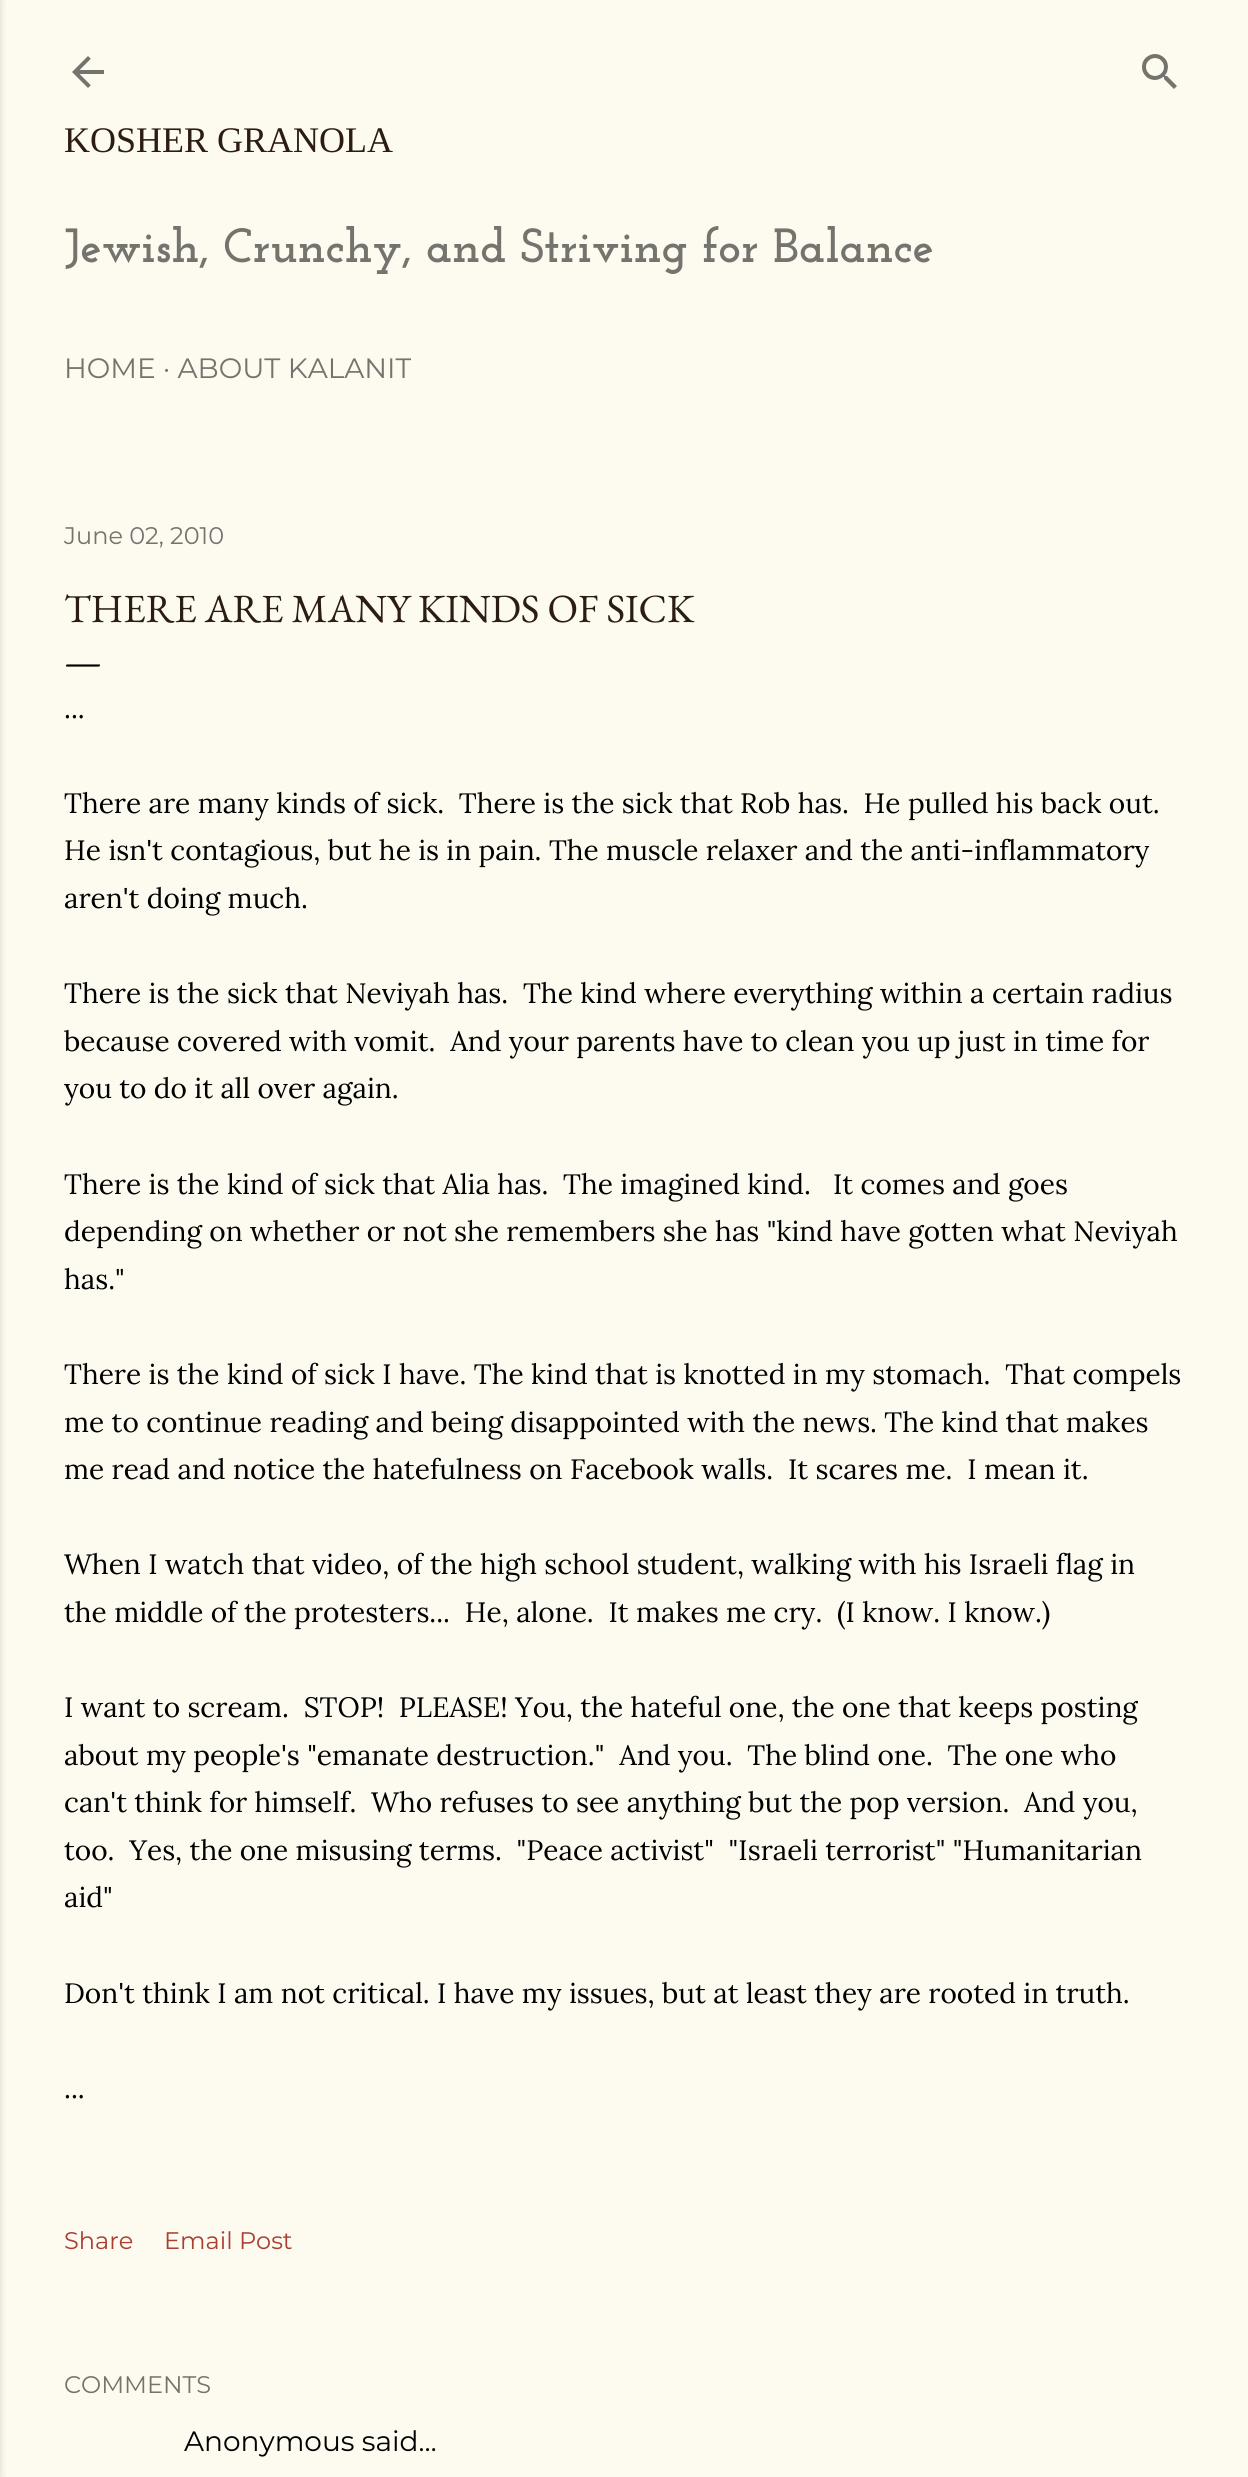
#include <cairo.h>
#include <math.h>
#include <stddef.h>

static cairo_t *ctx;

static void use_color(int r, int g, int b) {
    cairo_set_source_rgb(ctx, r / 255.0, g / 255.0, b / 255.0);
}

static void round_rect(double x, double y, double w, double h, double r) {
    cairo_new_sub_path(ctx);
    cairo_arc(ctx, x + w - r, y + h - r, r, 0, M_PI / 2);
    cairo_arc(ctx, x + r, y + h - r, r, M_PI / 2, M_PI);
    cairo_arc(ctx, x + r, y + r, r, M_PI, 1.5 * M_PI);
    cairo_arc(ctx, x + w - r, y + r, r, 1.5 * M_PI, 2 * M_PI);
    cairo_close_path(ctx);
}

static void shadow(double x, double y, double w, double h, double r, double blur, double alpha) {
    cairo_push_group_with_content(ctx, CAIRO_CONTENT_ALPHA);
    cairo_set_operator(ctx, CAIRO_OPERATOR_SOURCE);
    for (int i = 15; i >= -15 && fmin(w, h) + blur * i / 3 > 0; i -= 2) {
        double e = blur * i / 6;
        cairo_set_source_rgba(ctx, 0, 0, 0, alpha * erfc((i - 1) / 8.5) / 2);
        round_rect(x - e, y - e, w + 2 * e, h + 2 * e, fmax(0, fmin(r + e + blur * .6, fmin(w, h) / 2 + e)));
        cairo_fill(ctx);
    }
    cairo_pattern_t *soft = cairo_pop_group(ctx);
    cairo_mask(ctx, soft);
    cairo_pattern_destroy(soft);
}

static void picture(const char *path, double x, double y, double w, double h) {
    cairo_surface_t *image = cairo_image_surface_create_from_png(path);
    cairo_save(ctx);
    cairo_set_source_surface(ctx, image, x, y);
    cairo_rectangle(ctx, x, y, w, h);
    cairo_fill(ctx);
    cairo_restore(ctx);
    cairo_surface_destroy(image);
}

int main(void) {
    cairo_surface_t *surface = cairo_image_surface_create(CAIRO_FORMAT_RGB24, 1248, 2477);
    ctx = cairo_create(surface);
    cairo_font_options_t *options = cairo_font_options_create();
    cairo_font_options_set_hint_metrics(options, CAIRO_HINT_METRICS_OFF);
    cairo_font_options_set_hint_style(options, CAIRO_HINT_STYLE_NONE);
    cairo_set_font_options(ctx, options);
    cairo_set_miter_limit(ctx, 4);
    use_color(253, 250, 240);
    cairo_paint(ctx);
    use_color(0, 0, 0);
    shadow(-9, 0, 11, 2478, 0, 3, 0.1);
    picture("img1.png", 72, 56, 32, 32);
    picture("img2.png", 1142, 54, 35, 35);
    cairo_select_font_face(ctx, "Liberation Serif", CAIRO_FONT_SLANT_NORMAL, CAIRO_FONT_WEIGHT_NORMAL);
    cairo_set_font_size(ctx, 36);
    use_color(44, 29, 20);
    cairo_move_to(ctx, 64, 152);
    cairo_show_text(ctx, "KOSHER GRANOLA");
    cairo_select_font_face(ctx, "Josefin Slab Thin", CAIRO_FONT_SLANT_NORMAL, CAIRO_FONT_WEIGHT_NORMAL);
    cairo_set_font_size(ctx, 48);
    use_color(116, 115, 110);
    cairo_move_to(ctx, 64, 262);
    cairo_show_text(ctx, "Jewish, Crunchy, and Striving for Balance");
    cairo_select_font_face(ctx, "Montserrat", CAIRO_FONT_SLANT_NORMAL, CAIRO_FONT_WEIGHT_NORMAL);
    cairo_set_font_size(ctx, 28);
    cairo_move_to(ctx, 64, 378);
    cairo_show_text(ctx, "HOME · ABOUT KALANIT");
    cairo_set_font_size(ctx, 24);
    cairo_move_to(ctx, 64, 544);
    cairo_show_text(ctx, "June 02, 2010");
    cairo_select_font_face(ctx, "EB Garamond", CAIRO_FONT_SLANT_NORMAL, CAIRO_FONT_WEIGHT_NORMAL);
    cairo_set_font_size(ctx, 40);
    use_color(44, 29, 20);
    cairo_move_to(ctx, 64, 622);
    cairo_show_text(ctx, "THERE ARE MANY KINDS OF SICK");
    use_color(0, 0, 0);
    cairo_move_to(ctx, 64, 674);
    cairo_show_text(ctx, "—");
    cairo_select_font_face(ctx, "Lora", CAIRO_FONT_SLANT_NORMAL, CAIRO_FONT_WEIGHT_NORMAL);
    cairo_set_font_size(ctx, 28);
    cairo_move_to(ctx, 64, 718);
    cairo_show_text(ctx, "...");
    cairo_move_to(ctx, 64, 813);
    cairo_show_text(ctx, "There are many kinds of sick.  There is the sick that Rob has.  He pulled his back out.");
    cairo_move_to(ctx, 64, 860);
    cairo_show_text(ctx, "He isn't contagious, but he is in pain. The muscle relaxer and the anti-inflammatory");
    cairo_move_to(ctx, 64, 908);
    cairo_show_text(ctx, "aren't doing much.");
    cairo_move_to(ctx, 64, 1003);
    cairo_show_text(ctx, "There is the sick that Neviyah has.  The kind where everything within a certain radius");
    cairo_move_to(ctx, 64, 1051);
    cairo_show_text(ctx, "because covered with vomit.  And your parents have to clean you up just in time for");
    cairo_move_to(ctx, 64, 1098);
    cairo_show_text(ctx, "you to do it all over again.");
    cairo_move_to(ctx, 64, 1194);
    cairo_show_text(ctx, "There is the kind of sick that Alia has.  The imagined kind.   It comes and goes");
    cairo_move_to(ctx, 64, 1241);
    cairo_show_text(ctx, "depending on whether or not she remembers she has \"kind have gotten what Neviyah");
    cairo_move_to(ctx, 64, 1289);
    cairo_show_text(ctx, "has.\"");
    cairo_move_to(ctx, 64, 1384);
    cairo_show_text(ctx, "There is the kind of sick I have. The kind that is knotted in my stomach.  That compels");
    cairo_move_to(ctx, 64, 1432);
    cairo_show_text(ctx, "me to continue reading and being disappointed with the news. The kind that makes");
    cairo_move_to(ctx, 64, 1479);
    cairo_show_text(ctx, "me read and notice the hatefulness on Facebook walls.  It scares me.  I mean it.");
    cairo_move_to(ctx, 64, 1574);
    cairo_show_text(ctx, "When I watch that video, of the high school student, walking with his Israeli flag in");
    cairo_move_to(ctx, 64, 1622);
    cairo_show_text(ctx, "the middle of the protesters...  He, alone.  It makes me cry.  (I know. I know.)");
    cairo_move_to(ctx, 64, 1717);
    cairo_show_text(ctx, "I want to scream.  STOP!  PLEASE! You, the hateful one, the one that keeps posting");
    cairo_move_to(ctx, 64, 1765);
    cairo_show_text(ctx, "about my people's \"emanate destruction.\"  And you.  The blind one.  The one who");
    cairo_move_to(ctx, 64, 1812);
    cairo_show_text(ctx, "can't think for himself.  Who refuses to see anything but the pop version.  And you,");
    cairo_move_to(ctx, 64, 1860);
    cairo_show_text(ctx, "too.  Yes, the one misusing terms.  \"Peace activist\"  \"Israeli terrorist\" \"Humanitarian");
    cairo_move_to(ctx, 64, 1907);
    cairo_show_text(ctx, "aid\"");
    cairo_move_to(ctx, 64, 2003);
    cairo_show_text(ctx, "Don't think I am not critical. I have my issues, but at least they are rooted in truth.");
    cairo_move_to(ctx, 64, 2098);
    cairo_show_text(ctx, "...");
    cairo_select_font_face(ctx, "Montserrat", CAIRO_FONT_SLANT_NORMAL, CAIRO_FONT_WEIGHT_NORMAL);
    cairo_set_font_size(ctx, 24);
    use_color(169, 62, 51);
    cairo_move_to(ctx, 64, 2249);
    cairo_show_text(ctx, "Share");
    cairo_move_to(ctx, 164, 2249);
    cairo_show_text(ctx, "Email Post");
    use_color(116, 115, 110);
    cairo_move_to(ctx, 64, 2393);
    cairo_show_text(ctx, "COMMENTS");
    cairo_set_font_size(ctx, 28);
    use_color(0, 0, 0);
    cairo_move_to(ctx, 184, 2451);
    cairo_show_text(ctx, "Anonymous said…");
    cairo_surface_write_to_png(surface, "result.png");
    cairo_font_options_destroy(options);
    cairo_destroy(ctx);
    cairo_surface_destroy(surface);
    return 0;
}
